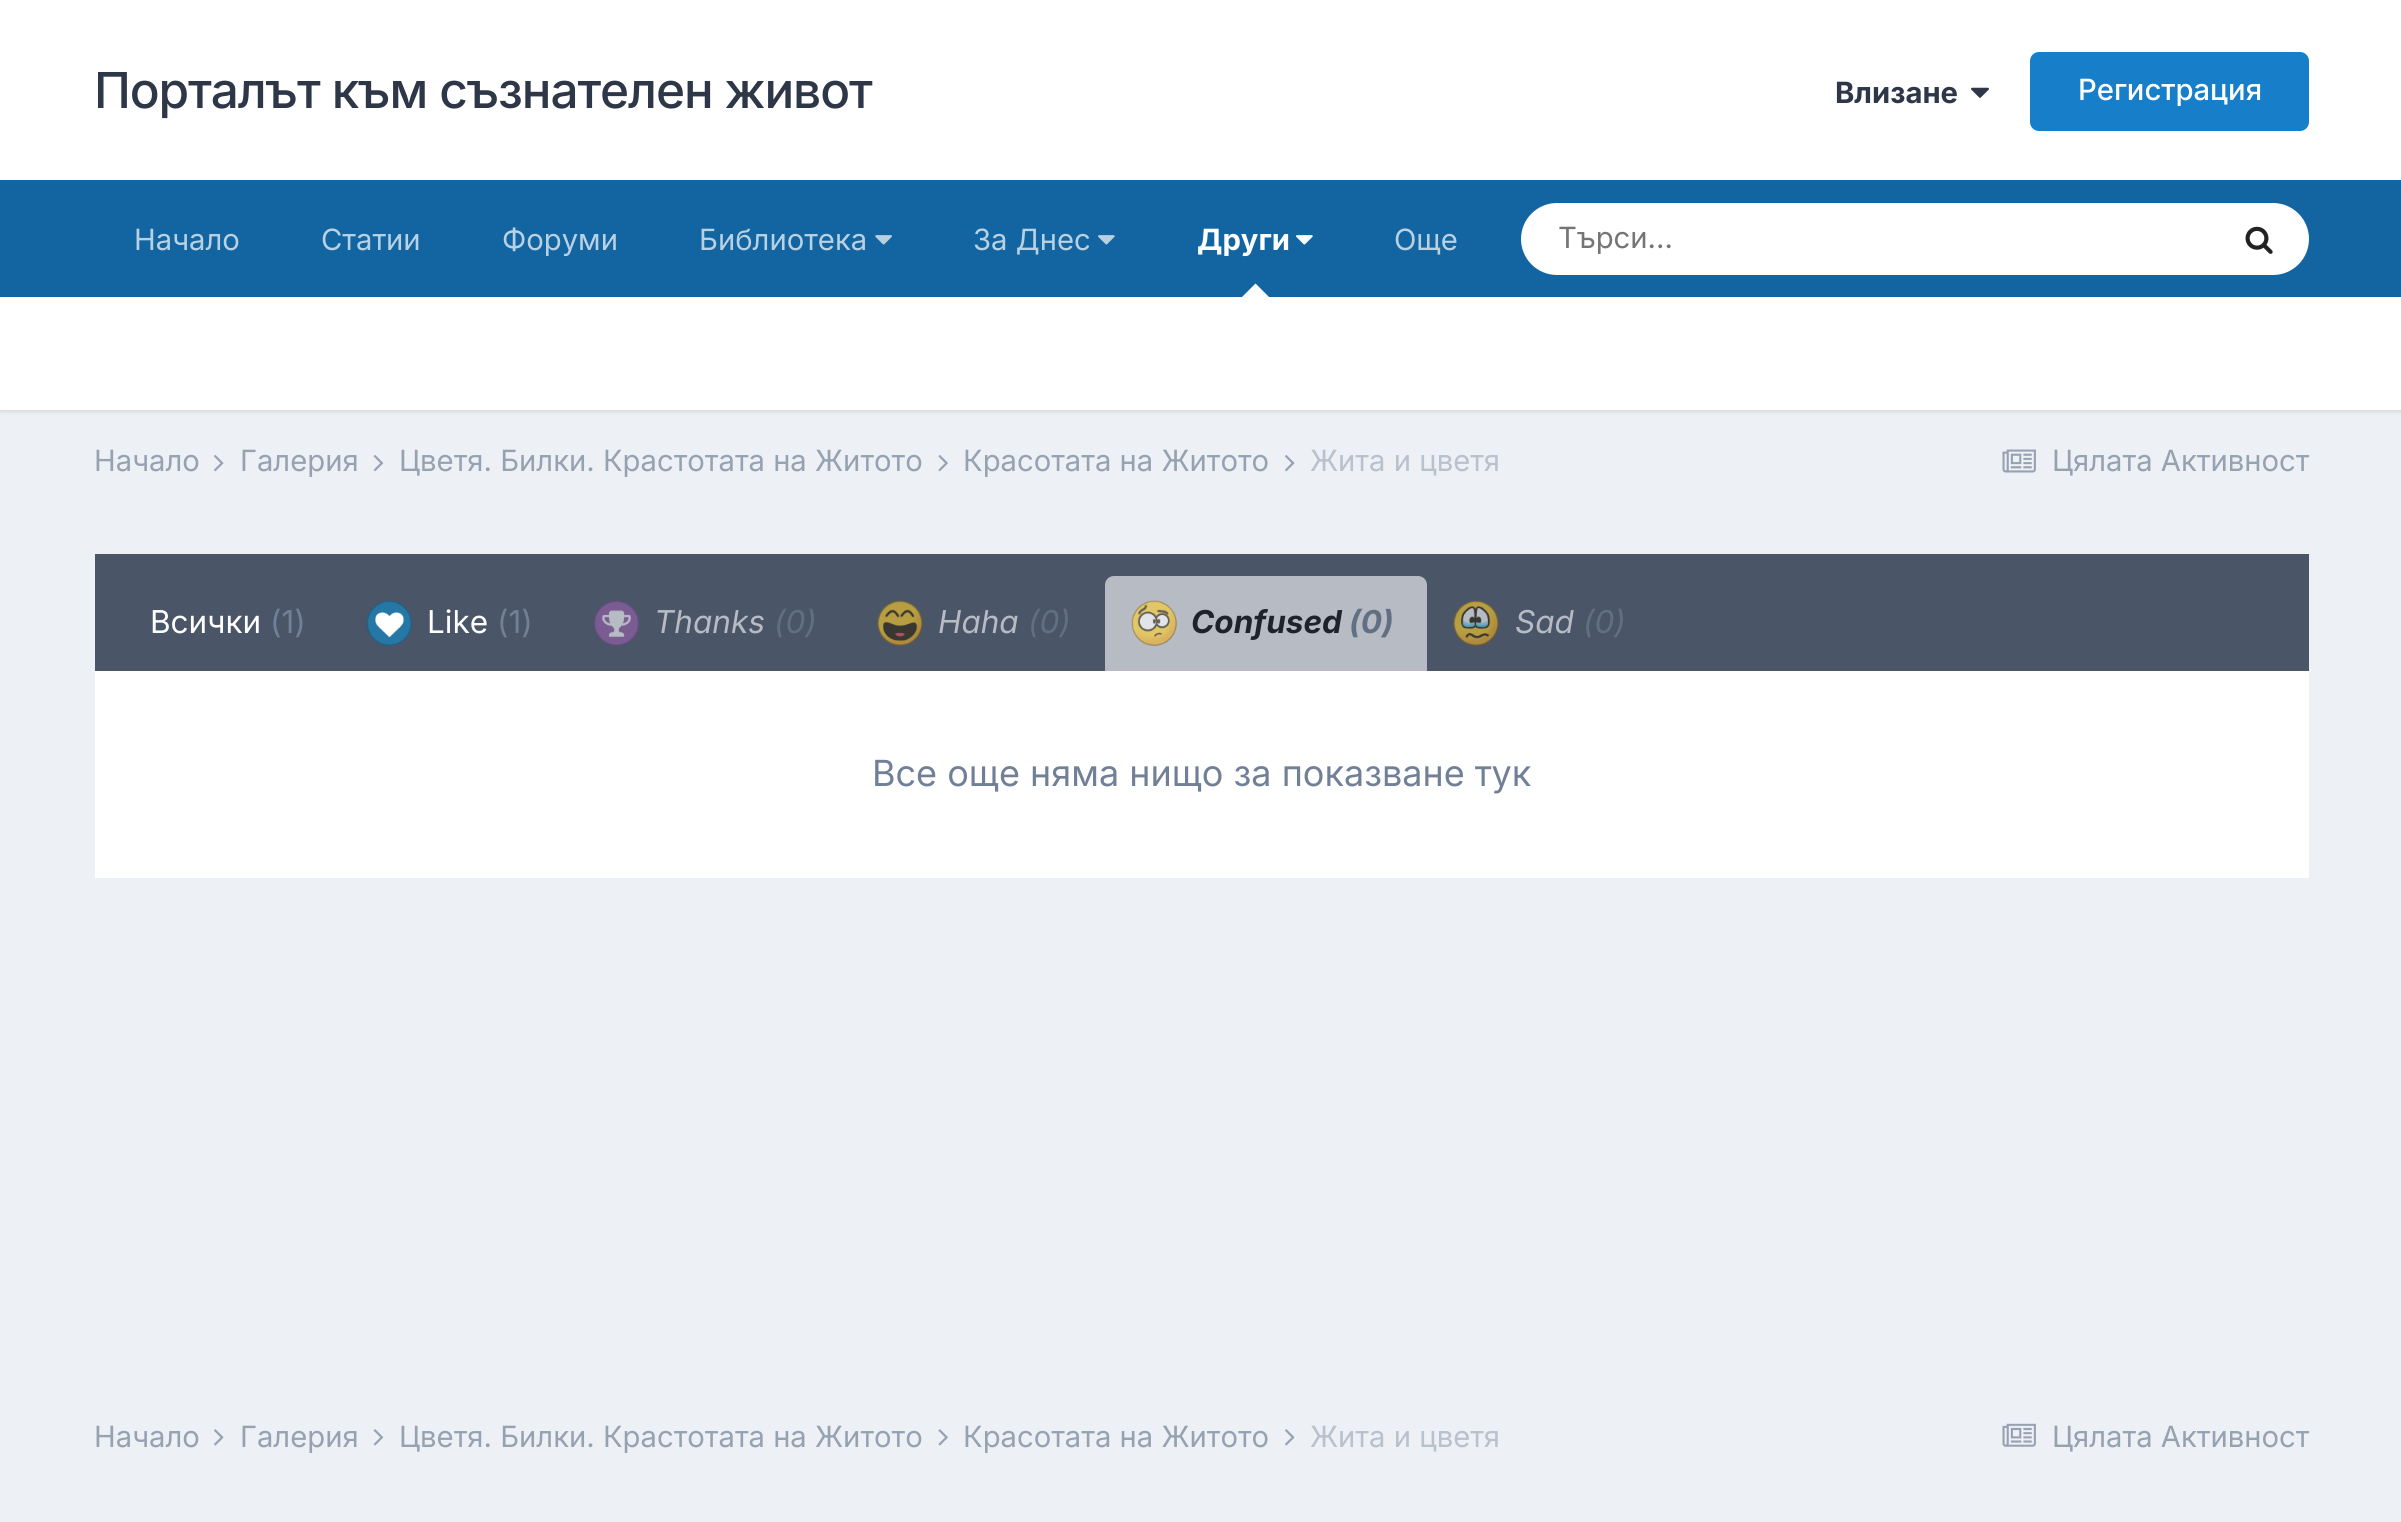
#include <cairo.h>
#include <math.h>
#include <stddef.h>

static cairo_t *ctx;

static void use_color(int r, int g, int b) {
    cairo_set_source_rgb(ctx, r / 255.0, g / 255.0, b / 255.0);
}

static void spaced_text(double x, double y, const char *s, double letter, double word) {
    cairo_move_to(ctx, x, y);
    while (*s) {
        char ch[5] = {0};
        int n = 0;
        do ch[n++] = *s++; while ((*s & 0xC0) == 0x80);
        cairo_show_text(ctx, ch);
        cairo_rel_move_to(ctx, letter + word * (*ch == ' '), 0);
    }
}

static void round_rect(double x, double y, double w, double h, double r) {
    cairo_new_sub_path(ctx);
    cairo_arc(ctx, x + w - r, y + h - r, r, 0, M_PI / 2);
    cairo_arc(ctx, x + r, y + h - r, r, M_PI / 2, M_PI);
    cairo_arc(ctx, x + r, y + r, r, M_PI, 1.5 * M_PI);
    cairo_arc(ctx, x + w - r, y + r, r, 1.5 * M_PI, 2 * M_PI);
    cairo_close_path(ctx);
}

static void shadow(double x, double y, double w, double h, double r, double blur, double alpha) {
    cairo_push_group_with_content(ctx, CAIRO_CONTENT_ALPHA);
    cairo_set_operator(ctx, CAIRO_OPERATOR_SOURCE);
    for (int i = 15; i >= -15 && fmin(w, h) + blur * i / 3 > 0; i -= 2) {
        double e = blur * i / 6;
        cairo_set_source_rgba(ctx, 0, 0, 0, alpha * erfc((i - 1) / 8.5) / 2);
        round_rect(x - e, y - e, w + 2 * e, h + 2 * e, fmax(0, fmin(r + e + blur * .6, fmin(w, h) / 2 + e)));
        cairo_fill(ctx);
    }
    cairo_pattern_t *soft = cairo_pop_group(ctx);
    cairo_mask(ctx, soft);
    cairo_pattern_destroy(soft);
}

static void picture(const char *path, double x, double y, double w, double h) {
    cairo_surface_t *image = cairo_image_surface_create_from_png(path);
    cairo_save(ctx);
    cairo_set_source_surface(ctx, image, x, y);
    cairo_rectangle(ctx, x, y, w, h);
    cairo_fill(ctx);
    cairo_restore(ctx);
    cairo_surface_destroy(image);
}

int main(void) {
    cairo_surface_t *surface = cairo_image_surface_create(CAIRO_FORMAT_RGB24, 2401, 1522);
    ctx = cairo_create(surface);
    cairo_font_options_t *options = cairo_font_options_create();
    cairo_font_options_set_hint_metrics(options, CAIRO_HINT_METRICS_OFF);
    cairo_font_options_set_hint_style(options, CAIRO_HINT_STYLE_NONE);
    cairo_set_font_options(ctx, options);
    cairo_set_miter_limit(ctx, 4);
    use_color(237, 240, 244);
    cairo_paint(ctx);
    use_color(255, 255, 255);
    cairo_rectangle(ctx, 0, 0, 2401, 180);
    cairo_fill(ctx);
    cairo_select_font_face(ctx, "Inter Medium", CAIRO_FONT_SLANT_NORMAL, CAIRO_FONT_WEIGHT_NORMAL);
    cairo_set_font_size(ctx, 49.5);
    use_color(45, 55, 72);
    spaced_text(94, 108, "Порталът към съзнателен живот", -1.1, 0);
    cairo_select_font_face(ctx, "Inter", CAIRO_FONT_SLANT_NORMAL, CAIRO_FONT_WEIGHT_BOLD);
    cairo_set_font_size(ctx, 29.25);
    cairo_move_to(ctx, 1835, 103);
    cairo_show_text(ctx, "Влизане");
    picture("img1.png", 1971, 87, 18, 11);
    use_color(23, 126, 201);
    round_rect(2030, 52, 279, 79, 9);
    cairo_fill(ctx);
    cairo_select_font_face(ctx, "Inter Medium", CAIRO_FONT_SLANT_NORMAL, CAIRO_FONT_WEIGHT_NORMAL);
    use_color(255, 255, 255);
    cairo_move_to(ctx, 2078, 100);
    cairo_show_text(ctx, "Регистрация");
    use_color(18, 101, 161);
    cairo_rectangle(ctx, 0, 180, 2401, 117);
    cairo_fill(ctx);
    cairo_select_font_face(ctx, "Inter", CAIRO_FONT_SLANT_NORMAL, CAIRO_FONT_WEIGHT_NORMAL);
    use_color(184, 209, 227);
    cairo_move_to(ctx, 134, 250);
    cairo_show_text(ctx, "Начало");
    cairo_move_to(ctx, 321, 250);
    cairo_show_text(ctx, "Статии");
    cairo_move_to(ctx, 502, 250);
    cairo_show_text(ctx, "Форуми");
    cairo_move_to(ctx, 699, 250);
    cairo_show_text(ctx, "Библиотека");
    picture("img2.png", 875, 235, 17, 10);
    cairo_move_to(ctx, 973, 250);
    cairo_show_text(ctx, "За Днес");
    picture("img3.png", 1098, 235, 17, 10);
    cairo_select_font_face(ctx, "Inter", CAIRO_FONT_SLANT_NORMAL, CAIRO_FONT_WEIGHT_BOLD);
    use_color(255, 255, 255);
    cairo_move_to(ctx, 1197, 250);
    cairo_show_text(ctx, "Други");
    picture("img4.png", 1296, 235, 17, 10);
    use_color(0, 0, 0);
    shadow(0, 299, 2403, 113, 0, 2, 0.1);
    use_color(255, 255, 255);
    cairo_new_path(ctx);
    cairo_move_to(ctx, 1269, 297);
    cairo_line_to(ctx, 1242, 297);
    cairo_line_to(ctx, 1255.5, 283.5);
    cairo_close_path(ctx);
    cairo_fill(ctx);
    cairo_select_font_face(ctx, "Inter", CAIRO_FONT_SLANT_NORMAL, CAIRO_FONT_WEIGHT_NORMAL);
    use_color(184, 209, 227);
    cairo_move_to(ctx, 1394, 250);
    cairo_show_text(ctx, "Още");
    use_color(255, 255, 255);
    round_rect(1521, 203, 788, 72, 36);
    cairo_fill(ctx);
    use_color(117, 117, 117);
    cairo_move_to(ctx, 1558, 248);
    cairo_show_text(ctx, "Търси...");
    picture("img5.png", 2245, 226, 28, 28);
    use_color(255, 255, 255);
    cairo_rectangle(ctx, 0, 297, 2401, 113);
    cairo_fill(ctx);
    use_color(150, 162, 178);
    cairo_move_to(ctx, 94, 471);
    cairo_show_text(ctx, "Начало");
    picture("img6.png", 214, 455, 10, 17);
    cairo_move_to(ctx, 240, 471);
    cairo_show_text(ctx, "Галерия");
    picture("img7.png", 373, 455, 11, 17);
    cairo_move_to(ctx, 399, 471);
    cairo_show_text(ctx, "Цветя. Билки. Крастотата на Житото");
    picture("img8.png", 938, 455, 10, 17);
    cairo_move_to(ctx, 963, 471);
    cairo_show_text(ctx, "Красотата на Житото");
    picture("img6.png", 1285, 455, 10, 17);
    use_color(185, 193, 205);
    cairo_move_to(ctx, 1310, 471);
    cairo_show_text(ctx, "Жита и цветя");
    picture("img9.png", 2002, 449, 34, 24);
    use_color(150, 162, 178);
    cairo_move_to(ctx, 2052, 471);
    cairo_show_text(ctx, "Цялата Активност");
    use_color(74, 85, 104);
    cairo_rectangle(ctx, 95, 554, 2214, 117);
    cairo_fill(ctx);
    cairo_set_font_size(ctx, 31.5);
    use_color(255, 255, 255);
    cairo_move_to(ctx, 150, 633);
    cairo_show_text(ctx, "Всички");
    use_color(113, 128, 150);
    cairo_move_to(ctx, 270, 633);
    cairo_show_text(ctx, "(1)");
    picture("img10.png", 366, 600, 46, 46);
    use_color(255, 255, 255);
    cairo_move_to(ctx, 427, 633);
    cairo_show_text(ctx, "Like");
    use_color(113, 128, 150);
    cairo_move_to(ctx, 497, 633);
    cairo_show_text(ctx, "(1)");
    picture("img11.png", 594, 600, 45, 46);
    cairo_select_font_face(ctx, "Inter", CAIRO_FONT_SLANT_ITALIC, CAIRO_FONT_WEIGHT_NORMAL);
    use_color(183, 187, 195);
    cairo_move_to(ctx, 654, 633);
    cairo_show_text(ctx, "Thanks");
    use_color(97, 111, 132);
    cairo_move_to(ctx, 774, 633);
    cairo_show_text(ctx, "(0)");
    picture("img12.png", 877, 600, 46, 46);
    use_color(183, 187, 195);
    cairo_move_to(ctx, 938, 633);
    cairo_show_text(ctx, "Haha");
    use_color(97, 111, 132);
    cairo_move_to(ctx, 1028, 633);
    cairo_show_text(ctx, "(0)");
    use_color(183, 187, 195);
    cairo_new_path(ctx);
    cairo_move_to(ctx, 1114, 576);
    cairo_line_to(ctx, 1418, 576);
    cairo_curve_to(ctx, 1423, 576, 1427, 580, 1427, 585);
    cairo_line_to(ctx, 1427, 671);
    cairo_line_to(ctx, 1105, 671);
    cairo_line_to(ctx, 1105, 585);
    cairo_curve_to(ctx, 1105, 580, 1109, 576, 1114, 576);
    cairo_close_path(ctx);
    cairo_fill(ctx);
    picture("img13.png", 1131, 600, 46, 46);
    cairo_select_font_face(ctx, "Inter", CAIRO_FONT_SLANT_ITALIC, CAIRO_FONT_WEIGHT_BOLD);
    use_color(30, 34, 42);
    cairo_move_to(ctx, 1191, 633);
    cairo_show_text(ctx, "Confused");
    use_color(97, 111, 132);
    cairo_move_to(ctx, 1349, 633);
    cairo_show_text(ctx, "(0)");
    picture("img14.png", 1453, 600, 46, 46);
    cairo_select_font_face(ctx, "Inter", CAIRO_FONT_SLANT_ITALIC, CAIRO_FONT_WEIGHT_NORMAL);
    use_color(183, 187, 195);
    cairo_move_to(ctx, 1515, 633);
    cairo_show_text(ctx, "Sad");
    use_color(97, 111, 132);
    cairo_move_to(ctx, 1583, 633);
    cairo_show_text(ctx, "(0)");
    use_color(255, 255, 255);
    cairo_rectangle(ctx, 95, 671, 2214, 207);
    cairo_fill(ctx);
    cairo_select_font_face(ctx, "Inter", CAIRO_FONT_SLANT_NORMAL, CAIRO_FONT_WEIGHT_NORMAL);
    cairo_set_font_size(ctx, 36);
    use_color(113, 128, 150);
    cairo_move_to(ctx, 872, 786);
    cairo_show_text(ctx, "Все още няма нищо за показване тук");
    cairo_set_font_size(ctx, 29.25);
    use_color(150, 162, 178);
    cairo_move_to(ctx, 94, 1447);
    cairo_show_text(ctx, "Начало");
    picture("img15.png", 214, 1429, 10, 17);
    cairo_move_to(ctx, 240, 1447);
    cairo_show_text(ctx, "Галерия");
    picture("img16.png", 373, 1429, 11, 17);
    cairo_move_to(ctx, 399, 1447);
    cairo_show_text(ctx, "Цветя. Билки. Крастотата на Житото");
    picture("img17.png", 938, 1429, 10, 17);
    cairo_move_to(ctx, 963, 1447);
    cairo_show_text(ctx, "Красотата на Житото");
    picture("img15.png", 1285, 1429, 10, 17);
    use_color(185, 193, 205);
    cairo_move_to(ctx, 1310, 1447);
    cairo_show_text(ctx, "Жита и цветя");
    picture("img18.png", 2002, 1423, 34, 24);
    use_color(150, 162, 178);
    cairo_move_to(ctx, 2052, 1447);
    cairo_show_text(ctx, "Цялата Активност");
    cairo_surface_write_to_png(surface, "result.png");
    cairo_font_options_destroy(options);
    cairo_destroy(ctx);
    cairo_surface_destroy(surface);
    return 0;
}
